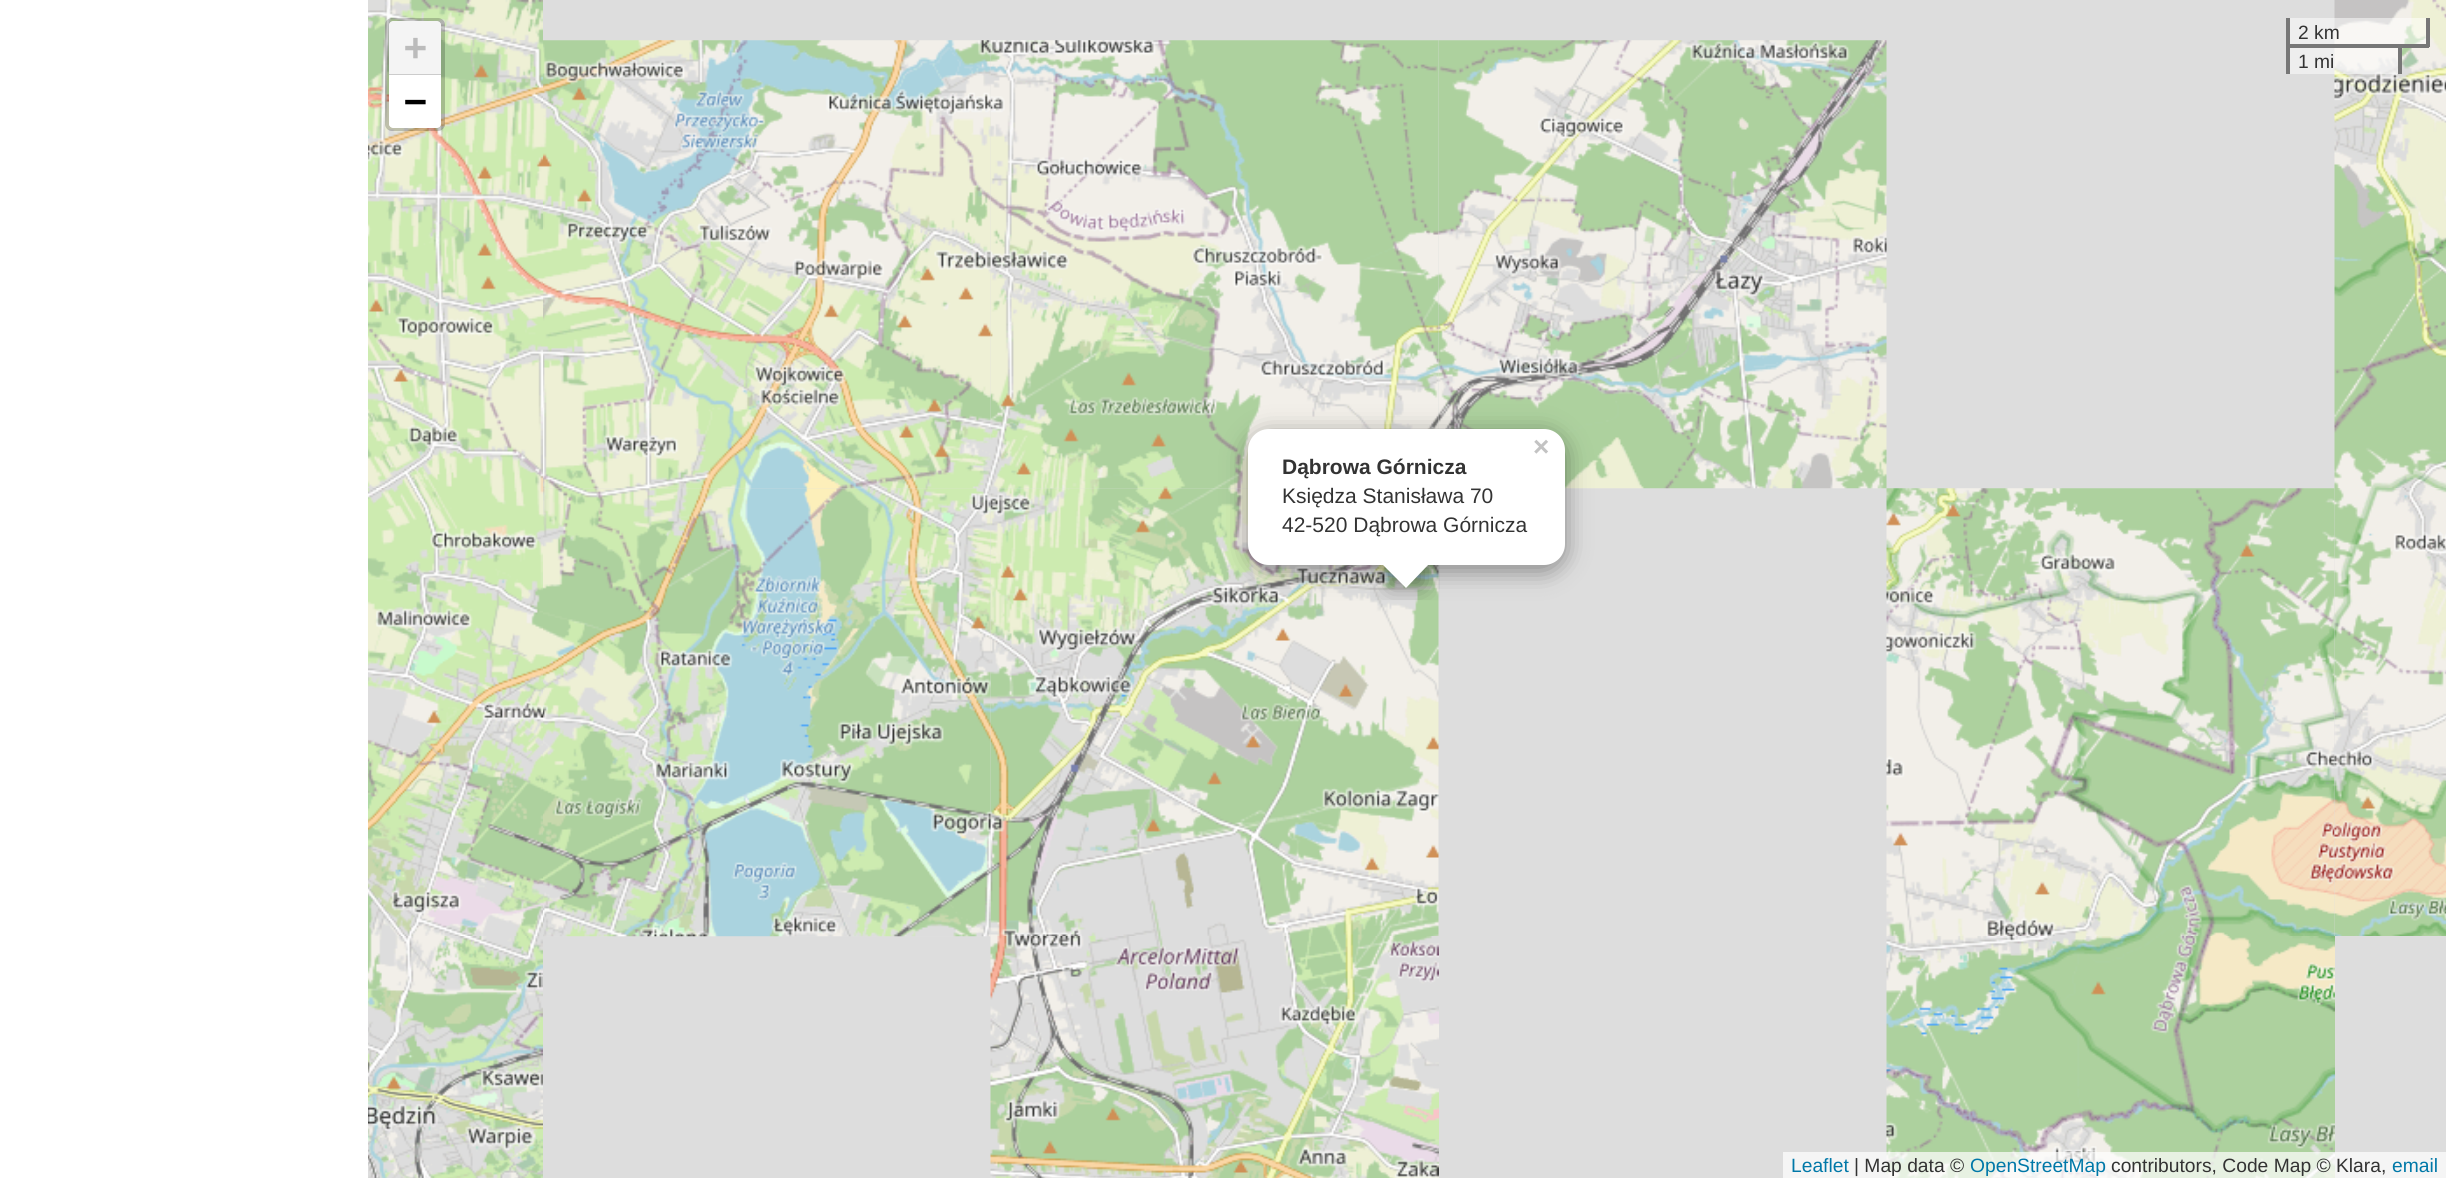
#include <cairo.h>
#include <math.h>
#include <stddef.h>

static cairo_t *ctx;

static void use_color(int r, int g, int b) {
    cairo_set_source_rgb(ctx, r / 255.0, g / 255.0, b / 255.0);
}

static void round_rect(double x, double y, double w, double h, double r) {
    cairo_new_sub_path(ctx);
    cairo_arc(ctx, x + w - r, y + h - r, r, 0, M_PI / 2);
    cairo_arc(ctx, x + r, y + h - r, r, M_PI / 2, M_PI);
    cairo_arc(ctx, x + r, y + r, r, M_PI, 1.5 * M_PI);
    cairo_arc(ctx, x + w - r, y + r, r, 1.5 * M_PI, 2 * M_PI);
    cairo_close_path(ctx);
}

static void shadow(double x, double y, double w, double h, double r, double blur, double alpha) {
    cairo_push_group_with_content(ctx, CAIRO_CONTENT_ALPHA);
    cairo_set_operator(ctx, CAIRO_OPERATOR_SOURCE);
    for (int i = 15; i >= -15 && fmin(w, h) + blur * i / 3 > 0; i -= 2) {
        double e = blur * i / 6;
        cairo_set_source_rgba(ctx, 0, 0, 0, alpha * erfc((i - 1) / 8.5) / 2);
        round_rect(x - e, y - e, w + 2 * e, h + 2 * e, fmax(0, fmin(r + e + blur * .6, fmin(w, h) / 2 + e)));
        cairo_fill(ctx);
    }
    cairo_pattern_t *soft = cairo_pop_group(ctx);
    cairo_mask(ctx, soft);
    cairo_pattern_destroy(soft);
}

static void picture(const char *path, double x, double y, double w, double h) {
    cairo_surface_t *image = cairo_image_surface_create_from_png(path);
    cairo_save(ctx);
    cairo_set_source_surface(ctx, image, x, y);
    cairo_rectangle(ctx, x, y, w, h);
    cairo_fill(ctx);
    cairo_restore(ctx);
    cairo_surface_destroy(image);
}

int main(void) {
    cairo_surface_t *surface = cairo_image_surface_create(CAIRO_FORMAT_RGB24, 2446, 1178);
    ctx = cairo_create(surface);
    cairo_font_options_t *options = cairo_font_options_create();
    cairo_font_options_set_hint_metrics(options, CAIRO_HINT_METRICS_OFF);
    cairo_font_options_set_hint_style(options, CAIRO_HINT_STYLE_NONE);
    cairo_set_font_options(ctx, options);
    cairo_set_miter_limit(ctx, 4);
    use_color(255, 255, 255);
    cairo_paint(ctx);
    use_color(221, 221, 221);
    cairo_rectangle(ctx, 543, 0, 1903, 1178);
    cairo_fill(ctx);
    picture("img1.png", 368, 0, 175, 40);
    picture("img3.png", 368, 40, 175, 448);
    round_rect(387, 20, 56, 109, 5);
    cairo_set_source_rgba(ctx, 0, 0, 0, 0.2);
    cairo_set_line_width(ctx, 4);
    cairo_stroke(ctx);
    use_color(244, 244, 244);
    cairo_new_path(ctx);
    cairo_move_to(ctx, 393, 21);
    cairo_line_to(ctx, 437, 21);
    cairo_curve_to(ctx, 439, 21, 441, 23, 441, 25);
    cairo_line_to(ctx, 441, 75);
    cairo_line_to(ctx, 389, 75);
    cairo_line_to(ctx, 389, 25);
    cairo_curve_to(ctx, 389, 23, 391, 21, 393, 21);
    cairo_close_path(ctx);
    cairo_fill(ctx);
    use_color(204, 204, 204);
    cairo_rectangle(ctx, 389, 74, 52, 1);
    cairo_fill(ctx);
    cairo_select_font_face(ctx, "DejaVu Sans Mono", CAIRO_FONT_SLANT_NORMAL, CAIRO_FONT_WEIGHT_BOLD);
    cairo_set_font_size(ctx, 38);
    use_color(187, 187, 187);
    cairo_move_to(ctx, 404, 60);
    cairo_show_text(ctx, "+");
    use_color(255, 255, 255);
    cairo_new_path(ctx);
    cairo_move_to(ctx, 389, 75);
    cairo_line_to(ctx, 441, 75);
    cairo_line_to(ctx, 441, 124);
    cairo_curve_to(ctx, 441, 126, 439, 128, 437, 128);
    cairo_line_to(ctx, 393, 128);
    cairo_curve_to(ctx, 391, 128, 389, 126, 389, 124);
    cairo_close_path(ctx);
    cairo_fill(ctx);
    use_color(0, 0, 0);
    cairo_move_to(ctx, 404, 114);
    cairo_show_text(ctx, "−");
    picture("img2.png", 2334, 0, 112, 40);
    picture("img7.png", 2334, 40, 112, 448);
    cairo_set_source_rgba(ctx, 1, 1, 1, 0.5);
    cairo_rectangle(ctx, 2290, 18, 136, 26);
    cairo_fill(ctx);
    use_color(119, 119, 119);
    cairo_rectangle(ctx, 2426, 18, 4, 29);
    cairo_fill(ctx);
    cairo_rectangle(ctx, 2402, 44, 27, 4);
    cairo_fill(ctx);
    cairo_rectangle(ctx, 2286, 18, 4, 29);
    cairo_fill(ctx);
    cairo_select_font_face(ctx, "Liberation Sans", CAIRO_FONT_SLANT_NORMAL, CAIRO_FONT_WEIGHT_NORMAL);
    cairo_set_font_size(ctx, 19.25);
    use_color(51, 51, 51);
    cairo_move_to(ctx, 2298, 39);
    cairo_show_text(ctx, "2 km");
    cairo_set_source_rgba(ctx, 1, 1, 1, 0.5);
    cairo_rectangle(ctx, 2290, 48, 108, 26);
    cairo_fill(ctx);
    use_color(119, 119, 119);
    cairo_rectangle(ctx, 2286, 44, 115, 4);
    cairo_fill(ctx);
    cairo_rectangle(ctx, 2398, 44, 4, 30);
    cairo_fill(ctx);
    cairo_rectangle(ctx, 2286, 44, 4, 30);
    cairo_fill(ctx);
    use_color(51, 51, 51);
    cairo_move_to(ctx, 2298, 68);
    cairo_show_text(ctx, "1 mi");
    picture("img10.png", 990, 488, 449, 449);
    picture("img5.png", 990, 40, 449, 449);
    picture("img6.png", 1438, 40, 449, 449);
    picture("img11.png", 1886, 488, 449, 449);
    picture("img15.png", 1886, 936, 449, 242);
    cairo_set_source_rgba(ctx, 1, 1, 1, 0.7);
    cairo_rectangle(ctx, 1783, 1152, 663, 26);
    cairo_fill(ctx);
    use_color(0, 120, 168);
    cairo_move_to(ctx, 1791, 1172);
    cairo_show_text(ctx, "Leaflet");
    use_color(51, 51, 51);
    cairo_move_to(ctx, 1854, 1172);
    cairo_show_text(ctx, "| Map data ©");
    use_color(0, 120, 168);
    cairo_move_to(ctx, 1970, 1172);
    cairo_show_text(ctx, "OpenStreetMap");
    use_color(51, 51, 51);
    cairo_move_to(ctx, 2111, 1172);
    cairo_show_text(ctx, "contributors, Code Map © Klara,");
    use_color(0, 120, 168);
    cairo_move_to(ctx, 2392, 1172);
    cairo_show_text(ctx, "email");
    picture("img14.png", 990, 936, 449, 242);
    picture("img9.png", 543, 488, 448, 449);
    picture("img4.png", 543, 40, 448, 449);
    picture("img8.png", 368, 488, 175, 448);
    picture("img12.png", 2334, 488, 112, 448);
    picture("img13.png", 368, 936, 175, 242);
    use_color(0, 0, 0);
    shadow(1248, 434, 317, 137, 21, 12, 0.4);
    use_color(255, 255, 255);
    round_rect(1248, 429, 317, 136, 21);
    cairo_fill(ctx);
    cairo_select_font_face(ctx, "Liberation Sans", CAIRO_FONT_SLANT_NORMAL, CAIRO_FONT_WEIGHT_BOLD);
    cairo_set_font_size(ctx, 28);
    use_color(195, 195, 195);
    cairo_move_to(ctx, 1533, 456);
    cairo_show_text(ctx, "×");
    cairo_set_font_size(ctx, 21);
    use_color(51, 51, 51);
    cairo_move_to(ctx, 1282, 474);
    cairo_show_text(ctx, "Dąbrowa Górnicza");
    cairo_select_font_face(ctx, "Liberation Sans", CAIRO_FONT_SLANT_NORMAL, CAIRO_FONT_WEIGHT_NORMAL);
    cairo_move_to(ctx, 1282, 503);
    cairo_show_text(ctx, "Księdza Stanisława 70");
    cairo_move_to(ctx, 1282, 532);
    cairo_show_text(ctx, "42-520 Dąbrowa Górnicza");
    cairo_save(ctx);
    cairo_rectangle(ctx, 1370, 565, 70, 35);
    cairo_clip(ctx);
    use_color(0, 0, 0);
    shadow(1390, 553, 33, 33, 0, 12.5, 0.4);
    cairo_restore(ctx);
    cairo_save(ctx);
    cairo_rectangle(ctx, 1370, 565, 70, 35);
    cairo_clip(ctx);
    use_color(255, 255, 255);
    cairo_new_path(ctx);
    cairo_move_to(ctx, 1406, 541);
    cairo_line_to(ctx, 1429, 564);
    cairo_line_to(ctx, 1406, 588);
    cairo_line_to(ctx, 1382, 564);
    cairo_close_path(ctx);
    cairo_fill(ctx);
    cairo_restore(ctx);
    cairo_surface_write_to_png(surface, "result.png");
    cairo_font_options_destroy(options);
    cairo_destroy(ctx);
    cairo_surface_destroy(surface);
    return 0;
}
